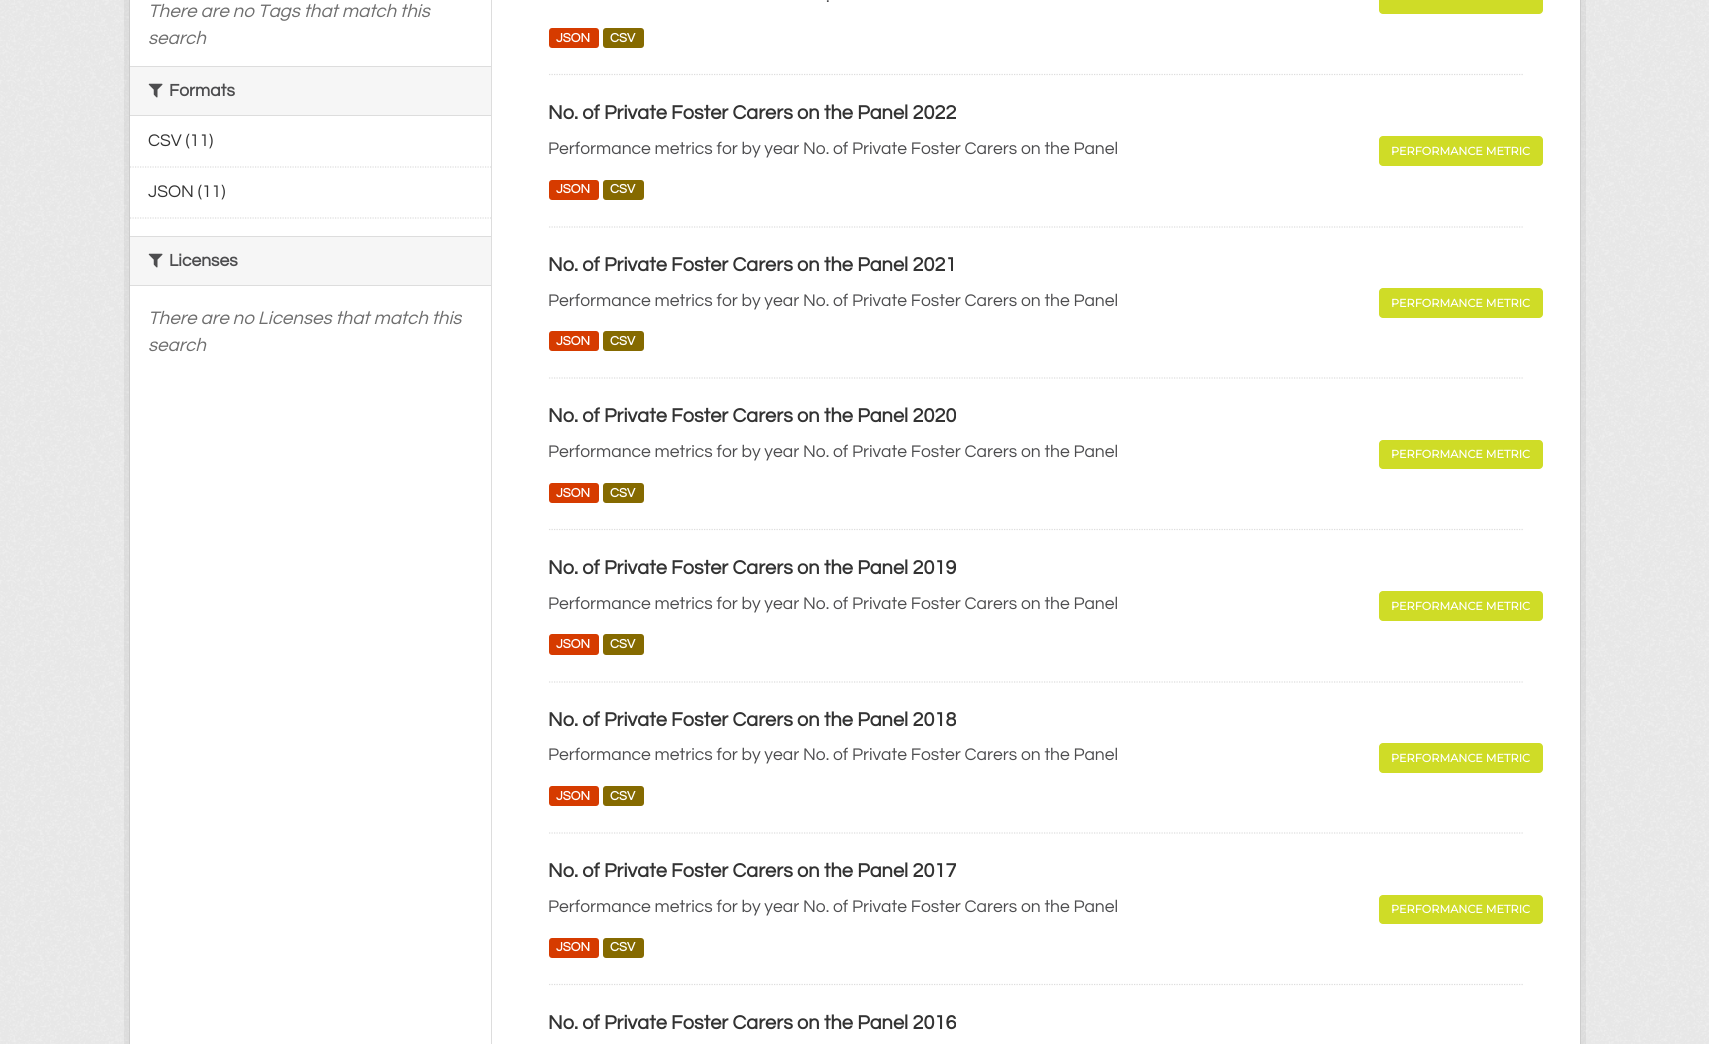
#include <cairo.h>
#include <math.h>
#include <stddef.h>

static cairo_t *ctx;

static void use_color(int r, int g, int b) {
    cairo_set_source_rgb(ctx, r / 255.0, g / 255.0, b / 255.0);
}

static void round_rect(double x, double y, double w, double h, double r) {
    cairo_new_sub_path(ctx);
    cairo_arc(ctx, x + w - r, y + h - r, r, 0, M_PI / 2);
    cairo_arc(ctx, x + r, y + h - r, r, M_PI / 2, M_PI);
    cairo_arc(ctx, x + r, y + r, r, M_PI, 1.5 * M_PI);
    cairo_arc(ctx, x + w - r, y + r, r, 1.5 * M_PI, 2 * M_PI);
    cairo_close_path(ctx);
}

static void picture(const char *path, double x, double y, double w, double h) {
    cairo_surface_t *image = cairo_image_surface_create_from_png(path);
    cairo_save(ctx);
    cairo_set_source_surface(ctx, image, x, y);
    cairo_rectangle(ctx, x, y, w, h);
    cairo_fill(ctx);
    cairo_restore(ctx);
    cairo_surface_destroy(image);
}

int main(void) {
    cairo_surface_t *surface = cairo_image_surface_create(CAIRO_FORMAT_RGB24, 1709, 1044);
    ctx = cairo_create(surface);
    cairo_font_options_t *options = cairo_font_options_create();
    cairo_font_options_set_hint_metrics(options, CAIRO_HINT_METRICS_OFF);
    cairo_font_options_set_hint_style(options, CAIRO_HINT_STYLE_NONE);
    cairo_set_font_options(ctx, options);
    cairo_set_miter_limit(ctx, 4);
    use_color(238, 238, 238);
    cairo_paint(ctx);
    picture("img1.png", 0, 0, 1709, 1044);
    cairo_rectangle(ctx, 126.5, -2.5, 1457, 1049);
    cairo_set_source_rgba(ctx, 0, 0, 0, 0.05);
    cairo_set_line_width(ctx, 5);
    cairo_stroke(ctx);
    use_color(255, 255, 255);
    cairo_rectangle(ctx, 129.5, -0.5, 1451, 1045);
    cairo_fill_preserve(ctx);
    use_color(204, 204, 204);
    cairo_set_line_width(ctx, 1);
    cairo_stroke(ctx);
    cairo_select_font_face(ctx, "Questrial", CAIRO_FONT_SLANT_ITALIC, CAIRO_FONT_WEIGHT_NORMAL);
    cairo_set_font_size(ctx, 18.75);
    use_color(110, 110, 110);
    cairo_move_to(ctx, 148, 17);
    cairo_show_text(ctx, "There are no Tags that match this");
    cairo_move_to(ctx, 148, 44);
    cairo_show_text(ctx, "search");
    use_color(246, 246, 246);
    cairo_rectangle(ctx, 130, 67, 361, 48);
    cairo_fill(ctx);
    use_color(221, 221, 221);
    cairo_rectangle(ctx, 130, 66, 361, 1);
    cairo_fill(ctx);
    cairo_rectangle(ctx, 130, 115, 361, 1);
    cairo_fill(ctx);
    picture("img2.png", 148, 83, 15, 15);
    cairo_select_font_face(ctx, "Questrial", CAIRO_FONT_SLANT_NORMAL, CAIRO_FONT_WEIGHT_BOLD);
    cairo_set_font_size(ctx, 17.5);
    use_color(77, 77, 79);
    cairo_move_to(ctx, 169, 96);
    cairo_show_text(ctx, "Formats");
    cairo_new_path(ctx);
    cairo_move_to(ctx, 130, 167);
    cairo_line_to(ctx, 491, 167);
    use_color(221, 221, 221);
    cairo_set_line_width(ctx, 1.2);
    cairo_set_dash(ctx, (double[]){1.25, 1.25}, 2, 0);
    cairo_stroke(ctx);
    cairo_select_font_face(ctx, "Questrial", CAIRO_FONT_SLANT_NORMAL, CAIRO_FONT_WEIGHT_NORMAL);
    use_color(51, 51, 51);
    cairo_move_to(ctx, 148, 146);
    cairo_show_text(ctx, "CSV (11)");
    cairo_move_to(ctx, 148, 197);
    cairo_show_text(ctx, "JSON (11)");
    cairo_new_path(ctx);
    cairo_move_to(ctx, 130, 218);
    cairo_line_to(ctx, 491, 218);
    use_color(221, 221, 221);
    cairo_stroke(ctx);
    use_color(246, 246, 246);
    cairo_rectangle(ctx, 130, 237, 361, 48);
    cairo_fill(ctx);
    use_color(221, 221, 221);
    cairo_rectangle(ctx, 130, 236, 361, 1);
    cairo_fill(ctx);
    cairo_rectangle(ctx, 130, 285, 361, 1);
    cairo_fill(ctx);
    picture("img2.png", 148, 253, 15, 15);
    cairo_select_font_face(ctx, "Questrial", CAIRO_FONT_SLANT_NORMAL, CAIRO_FONT_WEIGHT_BOLD);
    use_color(77, 77, 79);
    cairo_move_to(ctx, 169, 266);
    cairo_show_text(ctx, "Licenses");
    cairo_select_font_face(ctx, "Questrial", CAIRO_FONT_SLANT_ITALIC, CAIRO_FONT_WEIGHT_NORMAL);
    cairo_set_font_size(ctx, 18.75);
    use_color(110, 110, 110);
    cairo_move_to(ctx, 148, 324);
    cairo_show_text(ctx, "There are no Licenses that match this");
    cairo_move_to(ctx, 148, 351);
    cairo_show_text(ctx, "search");
    use_color(221, 221, 221);
    cairo_rectangle(ctx, 491, 0, 1, 1044);
    cairo_fill(ctx);
    cairo_new_path(ctx);
    cairo_move_to(ctx, 549, 74.5);
    cairo_line_to(ctx, 1524, 74.5);
    cairo_stroke(ctx);
    cairo_select_font_face(ctx, "Questrial", CAIRO_FONT_SLANT_NORMAL, CAIRO_FONT_WEIGHT_NORMAL);
    cairo_set_font_size(ctx, 17.5);
    use_color(77, 77, 79);
    cairo_move_to(ctx, 826, 2);
    cairo_show_text(ctx, ".");
    use_color(207, 220, 39);
    round_rect(1379, -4, 164, 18, 4);
    cairo_fill(ctx);
    use_color(214, 59, 0);
    round_rect(549, 28, 50, 20, 3);
    cairo_fill(ctx);
    cairo_select_font_face(ctx, "Questrial", CAIRO_FONT_SLANT_NORMAL, CAIRO_FONT_WEIGHT_BOLD);
    cairo_set_font_size(ctx, 13);
    use_color(255, 255, 255);
    cairo_move_to(ctx, 556, 42);
    cairo_show_text(ctx, "JSON");
    use_color(133, 106, 0);
    round_rect(603, 28, 41, 20, 3);
    cairo_fill(ctx);
    use_color(255, 255, 255);
    cairo_move_to(ctx, 610, 42);
    cairo_show_text(ctx, "CSV");
    cairo_new_path(ctx);
    cairo_move_to(ctx, 549, 227);
    cairo_line_to(ctx, 1524, 227);
    use_color(221, 221, 221);
    cairo_stroke(ctx);
    cairo_set_font_size(ctx, 20);
    use_color(51, 51, 51);
    cairo_move_to(ctx, 548, 119);
    cairo_show_text(ctx, "No. of Private Foster Carers on the Panel 2022");
    cairo_select_font_face(ctx, "Questrial", CAIRO_FONT_SLANT_NORMAL, CAIRO_FONT_WEIGHT_NORMAL);
    cairo_set_font_size(ctx, 17.5);
    use_color(77, 77, 79);
    cairo_move_to(ctx, 548, 154);
    cairo_show_text(ctx, "Performance metrics for by year No. of Private Foster Carers on the Panel");
    use_color(207, 220, 39);
    round_rect(1379, 136, 164, 30, 4);
    cairo_fill(ctx);
    cairo_select_font_face(ctx, "Montserrat", CAIRO_FONT_SLANT_NORMAL, CAIRO_FONT_WEIGHT_BOLD);
    cairo_set_font_size(ctx, 11.25);
    use_color(255, 255, 255);
    cairo_move_to(ctx, 1391, 155);
    cairo_show_text(ctx, "PERFORMANCE METRIC");
    use_color(214, 59, 0);
    round_rect(549, 180, 50, 20, 3);
    cairo_fill(ctx);
    cairo_select_font_face(ctx, "Questrial", CAIRO_FONT_SLANT_NORMAL, CAIRO_FONT_WEIGHT_BOLD);
    cairo_set_font_size(ctx, 13);
    use_color(255, 255, 255);
    cairo_move_to(ctx, 556, 193);
    cairo_show_text(ctx, "JSON");
    use_color(133, 106, 0);
    round_rect(603, 180, 41, 20, 3);
    cairo_fill(ctx);
    use_color(255, 255, 255);
    cairo_move_to(ctx, 610, 193);
    cairo_show_text(ctx, "CSV");
    cairo_new_path(ctx);
    cairo_move_to(ctx, 549, 378);
    cairo_line_to(ctx, 1524, 378);
    use_color(221, 221, 221);
    cairo_stroke(ctx);
    cairo_set_font_size(ctx, 20);
    use_color(51, 51, 51);
    cairo_move_to(ctx, 548, 271);
    cairo_show_text(ctx, "No. of Private Foster Carers on the Panel 2021");
    cairo_select_font_face(ctx, "Questrial", CAIRO_FONT_SLANT_NORMAL, CAIRO_FONT_WEIGHT_NORMAL);
    cairo_set_font_size(ctx, 17.5);
    use_color(77, 77, 79);
    cairo_move_to(ctx, 548, 306);
    cairo_show_text(ctx, "Performance metrics for by year No. of Private Foster Carers on the Panel");
    use_color(207, 220, 39);
    round_rect(1379, 288, 164, 30, 4);
    cairo_fill(ctx);
    cairo_select_font_face(ctx, "Montserrat", CAIRO_FONT_SLANT_NORMAL, CAIRO_FONT_WEIGHT_BOLD);
    cairo_set_font_size(ctx, 11.25);
    use_color(255, 255, 255);
    cairo_move_to(ctx, 1391, 307);
    cairo_show_text(ctx, "PERFORMANCE METRIC");
    use_color(214, 59, 0);
    round_rect(549, 331, 50, 20, 3);
    cairo_fill(ctx);
    cairo_select_font_face(ctx, "Questrial", CAIRO_FONT_SLANT_NORMAL, CAIRO_FONT_WEIGHT_BOLD);
    cairo_set_font_size(ctx, 13);
    use_color(255, 255, 255);
    cairo_move_to(ctx, 556, 345);
    cairo_show_text(ctx, "JSON");
    use_color(133, 106, 0);
    round_rect(603, 331, 41, 20, 3);
    cairo_fill(ctx);
    use_color(255, 255, 255);
    cairo_move_to(ctx, 610, 345);
    cairo_show_text(ctx, "CSV");
    cairo_new_path(ctx);
    cairo_move_to(ctx, 549, 529.5);
    cairo_line_to(ctx, 1524, 529.5);
    use_color(221, 221, 221);
    cairo_stroke(ctx);
    cairo_set_font_size(ctx, 20);
    use_color(51, 51, 51);
    cairo_move_to(ctx, 548, 422);
    cairo_show_text(ctx, "No. of Private Foster Carers on the Panel 2020");
    cairo_select_font_face(ctx, "Questrial", CAIRO_FONT_SLANT_NORMAL, CAIRO_FONT_WEIGHT_NORMAL);
    cairo_set_font_size(ctx, 17.5);
    use_color(77, 77, 79);
    cairo_move_to(ctx, 548, 457);
    cairo_show_text(ctx, "Performance metrics for by year No. of Private Foster Carers on the Panel");
    use_color(207, 220, 39);
    round_rect(1379, 440, 164, 29, 4);
    cairo_fill(ctx);
    cairo_select_font_face(ctx, "Montserrat", CAIRO_FONT_SLANT_NORMAL, CAIRO_FONT_WEIGHT_BOLD);
    cairo_set_font_size(ctx, 11.25);
    use_color(255, 255, 255);
    cairo_move_to(ctx, 1391, 458);
    cairo_show_text(ctx, "PERFORMANCE METRIC");
    use_color(214, 59, 0);
    round_rect(549, 483, 50, 20, 3);
    cairo_fill(ctx);
    cairo_select_font_face(ctx, "Questrial", CAIRO_FONT_SLANT_NORMAL, CAIRO_FONT_WEIGHT_BOLD);
    cairo_set_font_size(ctx, 13);
    use_color(255, 255, 255);
    cairo_move_to(ctx, 556, 497);
    cairo_show_text(ctx, "JSON");
    use_color(133, 106, 0);
    round_rect(603, 483, 41, 20, 3);
    cairo_fill(ctx);
    use_color(255, 255, 255);
    cairo_move_to(ctx, 610, 497);
    cairo_show_text(ctx, "CSV");
    cairo_new_path(ctx);
    cairo_move_to(ctx, 549, 682);
    cairo_line_to(ctx, 1524, 682);
    use_color(221, 221, 221);
    cairo_stroke(ctx);
    cairo_set_font_size(ctx, 20);
    use_color(51, 51, 51);
    cairo_move_to(ctx, 548, 574);
    cairo_show_text(ctx, "No. of Private Foster Carers on the Panel 2019");
    cairo_select_font_face(ctx, "Questrial", CAIRO_FONT_SLANT_NORMAL, CAIRO_FONT_WEIGHT_NORMAL);
    cairo_set_font_size(ctx, 17.5);
    use_color(77, 77, 79);
    cairo_move_to(ctx, 548, 609);
    cairo_show_text(ctx, "Performance metrics for by year No. of Private Foster Carers on the Panel");
    use_color(207, 220, 39);
    round_rect(1379, 591, 164, 30, 4);
    cairo_fill(ctx);
    cairo_select_font_face(ctx, "Montserrat", CAIRO_FONT_SLANT_NORMAL, CAIRO_FONT_WEIGHT_BOLD);
    cairo_set_font_size(ctx, 11.25);
    use_color(255, 255, 255);
    cairo_move_to(ctx, 1391, 610);
    cairo_show_text(ctx, "PERFORMANCE METRIC");
    use_color(214, 59, 0);
    round_rect(549, 634, 50, 21, 3);
    cairo_fill(ctx);
    cairo_select_font_face(ctx, "Questrial", CAIRO_FONT_SLANT_NORMAL, CAIRO_FONT_WEIGHT_BOLD);
    cairo_set_font_size(ctx, 13);
    use_color(255, 255, 255);
    cairo_move_to(ctx, 556, 648);
    cairo_show_text(ctx, "JSON");
    use_color(133, 106, 0);
    round_rect(603, 634, 41, 21, 3);
    cairo_fill(ctx);
    use_color(255, 255, 255);
    cairo_move_to(ctx, 610, 648);
    cairo_show_text(ctx, "CSV");
    cairo_new_path(ctx);
    cairo_move_to(ctx, 549, 833);
    cairo_line_to(ctx, 1524, 833);
    use_color(221, 221, 221);
    cairo_stroke(ctx);
    cairo_set_font_size(ctx, 20);
    use_color(51, 51, 51);
    cairo_move_to(ctx, 548, 726);
    cairo_show_text(ctx, "No. of Private Foster Carers on the Panel 2018");
    cairo_select_font_face(ctx, "Questrial", CAIRO_FONT_SLANT_NORMAL, CAIRO_FONT_WEIGHT_NORMAL);
    cairo_set_font_size(ctx, 17.5);
    use_color(77, 77, 79);
    cairo_move_to(ctx, 548, 760);
    cairo_show_text(ctx, "Performance metrics for by year No. of Private Foster Carers on the Panel");
    use_color(207, 220, 39);
    round_rect(1379, 743, 164, 30, 4);
    cairo_fill(ctx);
    cairo_select_font_face(ctx, "Montserrat", CAIRO_FONT_SLANT_NORMAL, CAIRO_FONT_WEIGHT_BOLD);
    cairo_set_font_size(ctx, 11.25);
    use_color(255, 255, 255);
    cairo_move_to(ctx, 1391, 762);
    cairo_show_text(ctx, "PERFORMANCE METRIC");
    use_color(214, 59, 0);
    round_rect(549, 786, 50, 20, 3);
    cairo_fill(ctx);
    cairo_select_font_face(ctx, "Questrial", CAIRO_FONT_SLANT_NORMAL, CAIRO_FONT_WEIGHT_BOLD);
    cairo_set_font_size(ctx, 13);
    use_color(255, 255, 255);
    cairo_move_to(ctx, 556, 800);
    cairo_show_text(ctx, "JSON");
    use_color(133, 106, 0);
    round_rect(603, 786, 41, 20, 3);
    cairo_fill(ctx);
    use_color(255, 255, 255);
    cairo_move_to(ctx, 610, 800);
    cairo_show_text(ctx, "CSV");
    cairo_new_path(ctx);
    cairo_move_to(ctx, 549, 984.5);
    cairo_line_to(ctx, 1524, 984.5);
    use_color(221, 221, 221);
    cairo_stroke(ctx);
    cairo_set_font_size(ctx, 20);
    use_color(51, 51, 51);
    cairo_move_to(ctx, 548, 877);
    cairo_show_text(ctx, "No. of Private Foster Carers on the Panel 2017");
    cairo_select_font_face(ctx, "Questrial", CAIRO_FONT_SLANT_NORMAL, CAIRO_FONT_WEIGHT_NORMAL);
    cairo_set_font_size(ctx, 17.5);
    use_color(77, 77, 79);
    cairo_move_to(ctx, 548, 912);
    cairo_show_text(ctx, "Performance metrics for by year No. of Private Foster Carers on the Panel");
    use_color(207, 220, 39);
    round_rect(1379, 895, 164, 29, 4);
    cairo_fill(ctx);
    cairo_select_font_face(ctx, "Montserrat", CAIRO_FONT_SLANT_NORMAL, CAIRO_FONT_WEIGHT_BOLD);
    cairo_set_font_size(ctx, 11.25);
    use_color(255, 255, 255);
    cairo_move_to(ctx, 1391, 913);
    cairo_show_text(ctx, "PERFORMANCE METRIC");
    use_color(214, 59, 0);
    round_rect(549, 938, 50, 20, 3);
    cairo_fill(ctx);
    cairo_select_font_face(ctx, "Questrial", CAIRO_FONT_SLANT_NORMAL, CAIRO_FONT_WEIGHT_BOLD);
    cairo_set_font_size(ctx, 13);
    use_color(255, 255, 255);
    cairo_move_to(ctx, 556, 951);
    cairo_show_text(ctx, "JSON");
    use_color(133, 106, 0);
    round_rect(603, 938, 41, 20, 3);
    cairo_fill(ctx);
    use_color(255, 255, 255);
    cairo_move_to(ctx, 610, 951);
    cairo_show_text(ctx, "CSV");
    cairo_set_font_size(ctx, 20);
    use_color(51, 51, 51);
    cairo_move_to(ctx, 548, 1029);
    cairo_show_text(ctx, "No. of Private Foster Carers on the Panel 2016");
    cairo_surface_write_to_png(surface, "result.png");
    cairo_font_options_destroy(options);
    cairo_destroy(ctx);
    cairo_surface_destroy(surface);
    return 0;
}
